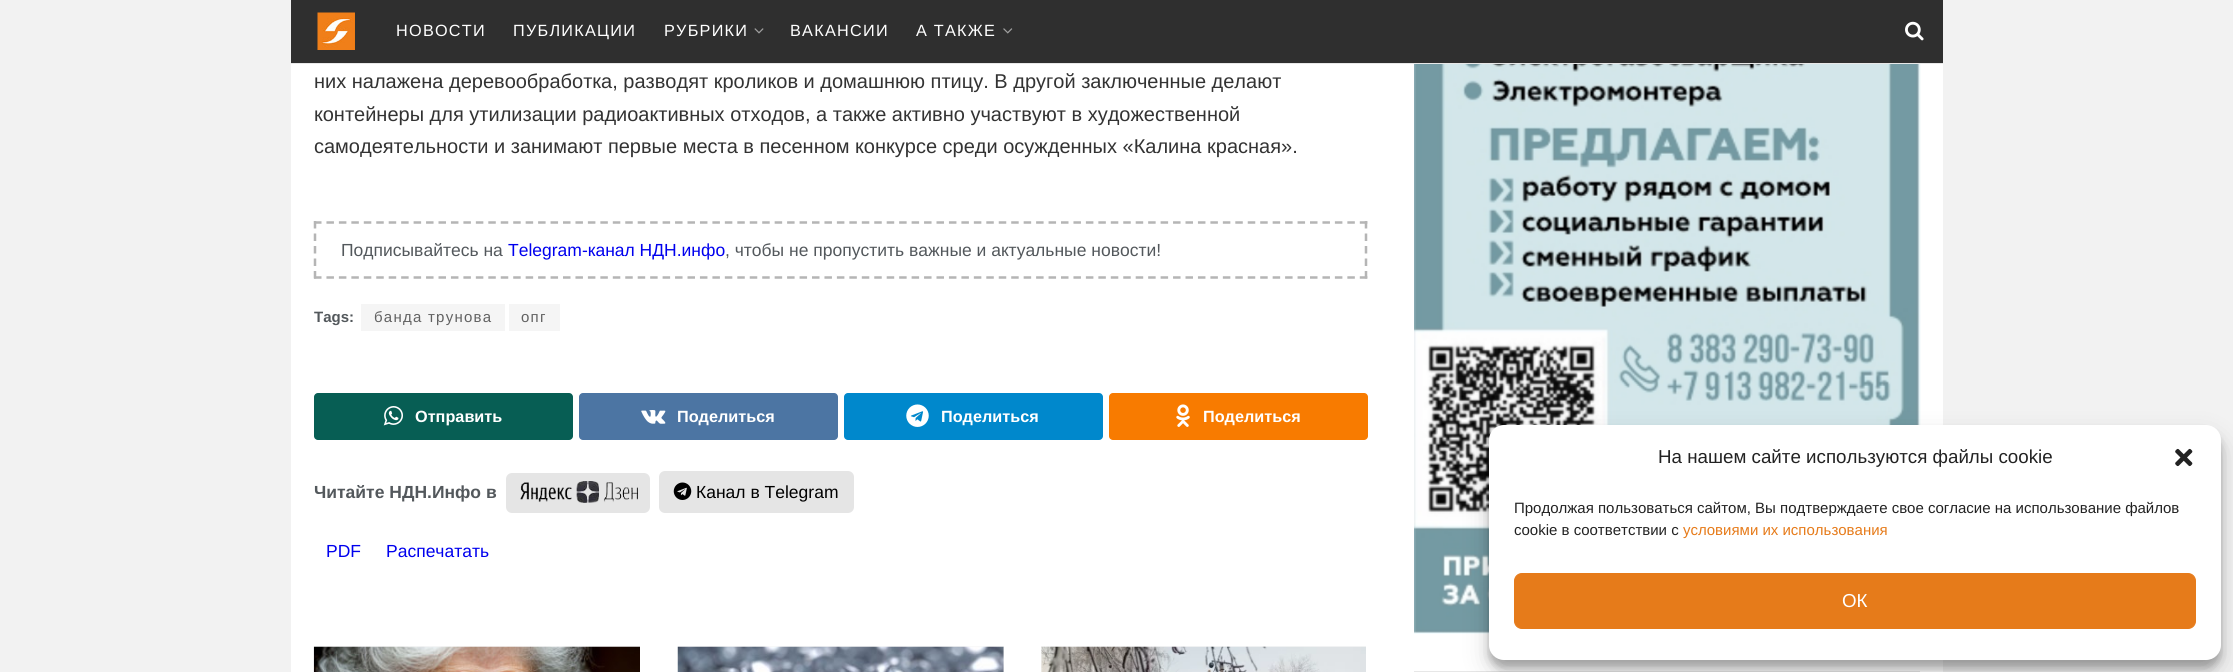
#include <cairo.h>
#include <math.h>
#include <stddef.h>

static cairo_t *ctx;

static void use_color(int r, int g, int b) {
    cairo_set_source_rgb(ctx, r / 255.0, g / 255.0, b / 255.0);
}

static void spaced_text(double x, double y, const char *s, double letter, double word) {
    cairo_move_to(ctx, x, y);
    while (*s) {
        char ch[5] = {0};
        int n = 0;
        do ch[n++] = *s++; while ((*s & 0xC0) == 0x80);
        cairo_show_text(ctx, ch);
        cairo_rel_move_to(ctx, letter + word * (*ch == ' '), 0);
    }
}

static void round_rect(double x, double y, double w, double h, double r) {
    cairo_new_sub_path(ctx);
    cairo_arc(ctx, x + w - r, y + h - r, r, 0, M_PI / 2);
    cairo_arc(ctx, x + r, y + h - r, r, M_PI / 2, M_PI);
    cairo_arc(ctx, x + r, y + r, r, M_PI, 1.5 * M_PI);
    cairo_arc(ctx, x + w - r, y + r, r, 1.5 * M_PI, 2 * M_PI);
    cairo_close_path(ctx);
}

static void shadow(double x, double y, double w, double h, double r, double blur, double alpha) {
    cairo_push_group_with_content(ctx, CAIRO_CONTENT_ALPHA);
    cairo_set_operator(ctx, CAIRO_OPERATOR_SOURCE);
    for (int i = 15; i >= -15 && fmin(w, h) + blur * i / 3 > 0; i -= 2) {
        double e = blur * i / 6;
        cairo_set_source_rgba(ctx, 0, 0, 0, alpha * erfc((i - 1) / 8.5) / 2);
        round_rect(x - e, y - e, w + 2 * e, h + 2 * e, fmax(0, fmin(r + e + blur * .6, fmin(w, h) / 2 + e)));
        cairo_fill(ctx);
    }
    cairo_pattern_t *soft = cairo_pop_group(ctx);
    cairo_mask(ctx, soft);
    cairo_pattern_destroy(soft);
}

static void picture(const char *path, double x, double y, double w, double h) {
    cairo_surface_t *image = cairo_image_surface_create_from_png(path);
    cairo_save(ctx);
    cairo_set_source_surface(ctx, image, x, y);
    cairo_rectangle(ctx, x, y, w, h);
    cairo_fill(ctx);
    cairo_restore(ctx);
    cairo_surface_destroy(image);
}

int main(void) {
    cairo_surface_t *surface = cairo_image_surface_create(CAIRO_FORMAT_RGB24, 2233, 672);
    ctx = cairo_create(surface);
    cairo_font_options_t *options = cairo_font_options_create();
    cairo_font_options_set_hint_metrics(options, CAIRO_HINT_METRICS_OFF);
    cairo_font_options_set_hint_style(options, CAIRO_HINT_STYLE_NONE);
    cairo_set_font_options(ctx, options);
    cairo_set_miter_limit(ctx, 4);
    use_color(242, 242, 242);
    cairo_paint(ctx);
    use_color(47, 47, 47);
    cairo_rectangle(ctx, 291, 0, 1652, 63);
    cairo_fill(ctx);
    use_color(232, 232, 232);
    cairo_rectangle(ctx, 291, 63, 1652, 1);
    cairo_fill(ctx);
    picture("img1.png", 317, 12, 38, 38);
    cairo_select_font_face(ctx, "Liberation Sans", CAIRO_FONT_SLANT_NORMAL, CAIRO_FONT_WEIGHT_NORMAL);
    cairo_set_font_size(ctx, 16.25);
    use_color(255, 255, 255);
    spaced_text(396, 36, "НОВОСТИ", 1.25, 0);
    spaced_text(513, 36, "ПУБЛИКАЦИИ", 1.25, 0);
    spaced_text(664, 36, "РУБРИКИ", 1.25, 0);
    picture("img2.png", 754, 28, 10, 6);
    spaced_text(790, 36, "ВАКАНСИИ", 1.25, 0);
    spaced_text(916, 36, "А ТАКЖЕ", 1.25, 0);
    picture("img3.png", 1003, 28, 10, 6);
    picture("img4.png", 1905, 21, 19, 20);
    cairo_rectangle(ctx, 291, 64, 1652, 608);
    cairo_fill(ctx);
    cairo_set_font_size(ctx, 20);
    use_color(51, 51, 51);
    cairo_move_to(ctx, 314, 88);
    cairo_show_text(ctx, "них налажена деревообработка, разводят кроликов и домашнюю птицу. В другой заключенные делают");
    cairo_move_to(ctx, 314, 121);
    cairo_show_text(ctx, "контейнеры для утилизации радиоактивных отходов, а также активно участвуют в художественной");
    cairo_move_to(ctx, 314, 153);
    cairo_show_text(ctx, "самодеятельности и занимают первые места в песенном конкурсе среди осужденных «Калина красная».");
    cairo_new_path(ctx);
    cairo_move_to(ctx, 314, 222.5);
    cairo_line_to(ctx, 1367.5, 222.5);
    use_color(181, 181, 181);
    cairo_set_line_width(ctx, 2.5);
    cairo_set_dash(ctx, (double[]){7.5, 4.95}, 2, 0);
    cairo_stroke(ctx);
    cairo_new_path(ctx);
    cairo_move_to(ctx, 1366, 221);
    cairo_line_to(ctx, 1366, 279);
    cairo_set_dash(ctx, (double[]){7.5, 5}, 2, 0);
    cairo_stroke(ctx);
    cairo_new_path(ctx);
    cairo_move_to(ctx, 314, 277.5);
    cairo_line_to(ctx, 1367.5, 277.5);
    cairo_set_dash(ctx, (double[]){7.5, 4.95}, 2, 0);
    cairo_stroke(ctx);
    cairo_new_path(ctx);
    cairo_move_to(ctx, 315, 221);
    cairo_line_to(ctx, 315, 279);
    cairo_set_dash(ctx, (double[]){7.5, 5}, 2, 0);
    cairo_stroke(ctx);
    cairo_set_font_size(ctx, 17.5);
    use_color(83, 88, 92);
    cairo_move_to(ctx, 341, 256);
    cairo_show_text(ctx, "Подписывайтесь на");
    use_color(0, 0, 238);
    cairo_move_to(ctx, 508, 256);
    cairo_show_text(ctx, "Telegram-канал НДН.инфо");
    use_color(83, 88, 92);
    cairo_move_to(ctx, 725, 256);
    cairo_show_text(ctx, ", чтобы не пропустить важные и актуальные новости!");
    cairo_select_font_face(ctx, "Liberation Sans", CAIRO_FONT_SLANT_NORMAL, CAIRO_FONT_WEIGHT_BOLD);
    cairo_set_font_size(ctx, 15);
    cairo_move_to(ctx, 314, 322);
    cairo_show_text(ctx, "Tags:");
    use_color(245, 245, 245);
    cairo_rectangle(ctx, 361, 304, 144, 27);
    cairo_fill(ctx);
    cairo_select_font_face(ctx, "Liberation Sans", CAIRO_FONT_SLANT_NORMAL, CAIRO_FONT_WEIGHT_NORMAL);
    use_color(97, 97, 97);
    spaced_text(374, 322, "банда трунова", 1.25, 0);
    use_color(245, 245, 245);
    cairo_rectangle(ctx, 509, 304, 51, 27);
    cairo_fill(ctx);
    use_color(97, 97, 97);
    spaced_text(521, 322, "опг", 1.25, 0);
    use_color(7, 94, 84);
    round_rect(314, 393, 259, 47, 4);
    cairo_fill(ctx);
    picture("img5.png", 383, 406, 20, 20);
    cairo_select_font_face(ctx, "Liberation Sans", CAIRO_FONT_SLANT_NORMAL, CAIRO_FONT_WEIGHT_BOLD);
    cairo_set_font_size(ctx, 16.25);
    use_color(255, 255, 255);
    cairo_move_to(ctx, 415, 422);
    cairo_show_text(ctx, "Отправить");
    use_color(76, 117, 163);
    round_rect(579, 393, 259, 47, 4);
    cairo_fill(ctx);
    picture("img6.png", 641, 410, 25, 14);
    use_color(255, 255, 255);
    cairo_move_to(ctx, 677, 422);
    cairo_show_text(ctx, "Поделиться");
    use_color(0, 136, 204);
    round_rect(844, 393, 259, 47, 4);
    cairo_fill(ctx);
    picture("img7.png", 906, 404, 23, 23);
    use_color(255, 255, 255);
    cairo_move_to(ctx, 941, 422);
    cairo_show_text(ctx, "Поделиться");
    use_color(248, 123, 0);
    round_rect(1109, 393, 259, 47, 4);
    cairo_fill(ctx);
    picture("img8.png", 1176, 404, 14, 23);
    use_color(255, 255, 255);
    cairo_move_to(ctx, 1203, 422);
    cairo_show_text(ctx, "Поделиться");
    cairo_set_font_size(ctx, 17.5);
    use_color(83, 88, 92);
    cairo_move_to(ctx, 314, 498);
    cairo_show_text(ctx, "Читайте НДН.Инфо в");
    use_color(229, 229, 229);
    round_rect(506, 473, 144, 40, 6);
    cairo_fill(ctx);
    picture("img9.png", 520, 481, 118, 22);
    round_rect(659, 471, 195, 42, 6);
    cairo_fill(ctx);
    picture("img10.png", 673, 482, 19, 18);
    cairo_select_font_face(ctx, "Liberation Sans", CAIRO_FONT_SLANT_NORMAL, CAIRO_FONT_WEIGHT_NORMAL);
    use_color(0, 0, 0);
    cairo_move_to(ctx, 696, 498);
    cairo_show_text(ctx, "Канал в Telegram");
    use_color(0, 0, 238);
    cairo_move_to(ctx, 326, 557);
    cairo_show_text(ctx, "PDF");
    cairo_move_to(ctx, 386, 557);
    cairo_show_text(ctx, "Распечатать");
    use_color(247, 247, 247);
    cairo_rectangle(ctx, 314, 646, 326, 1);
    cairo_fill(ctx);
    picture("img11.png", 313, 646, 327, 26);
    cairo_rectangle(ctx, 678, 646, 326, 26);
    cairo_fill(ctx);
    picture("img12.png", 677, 646, 327, 26);
    cairo_rectangle(ctx, 1041, 646, 325, 26);
    cairo_fill(ctx);
    picture("img13.png", 1041, 646, 325, 26);
    picture("img14.png", 1414, 64, 507, 570);
    use_color(231, 231, 231);
    cairo_rectangle(ctx, 1414, 671, 506, 1);
    cairo_fill(ctx);
    use_color(0, 0, 0);
    shadow(1489, 433, 732, 235, 15, 4, 0.23);
    shadow(1489, 438, 732, 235, 15, 12.5, 0.19);
    use_color(255, 255, 255);
    round_rect(1489, 425, 732, 235, 15);
    cairo_fill(ctx);
    cairo_set_font_size(ctx, 18.75);
    use_color(34, 34, 34);
    cairo_move_to(ctx, 1658, 463);
    cairo_show_text(ctx, "На нашем сайте используются файлы cookie");
    picture("img15.png", 2175, 448, 18, 19);
    cairo_set_font_size(ctx, 15);
    cairo_move_to(ctx, 1514, 513);
    cairo_show_text(ctx, "Продолжая пользоваться сайтом, Вы подтверждаете свое согласие на использование файлов");
    cairo_move_to(ctx, 1514, 535);
    cairo_show_text(ctx, "cookie в соответствии с");
    use_color(230, 123, 26);
    cairo_move_to(ctx, 1683, 535);
    cairo_show_text(ctx, "условиями их использования");
    round_rect(1514.5, 573.5, 681, 55, 7.5);
    cairo_fill_preserve(ctx);
    cairo_set_line_width(ctx, 1);
    cairo_set_dash(ctx, NULL, 0, 0);
    cairo_stroke(ctx);
    cairo_set_font_size(ctx, 18.75);
    use_color(255, 255, 255);
    cairo_move_to(ctx, 1842, 607);
    cairo_show_text(ctx, "ОК");
    cairo_surface_write_to_png(surface, "result.png");
    cairo_font_options_destroy(options);
    cairo_destroy(ctx);
    cairo_surface_destroy(surface);
    return 0;
}
